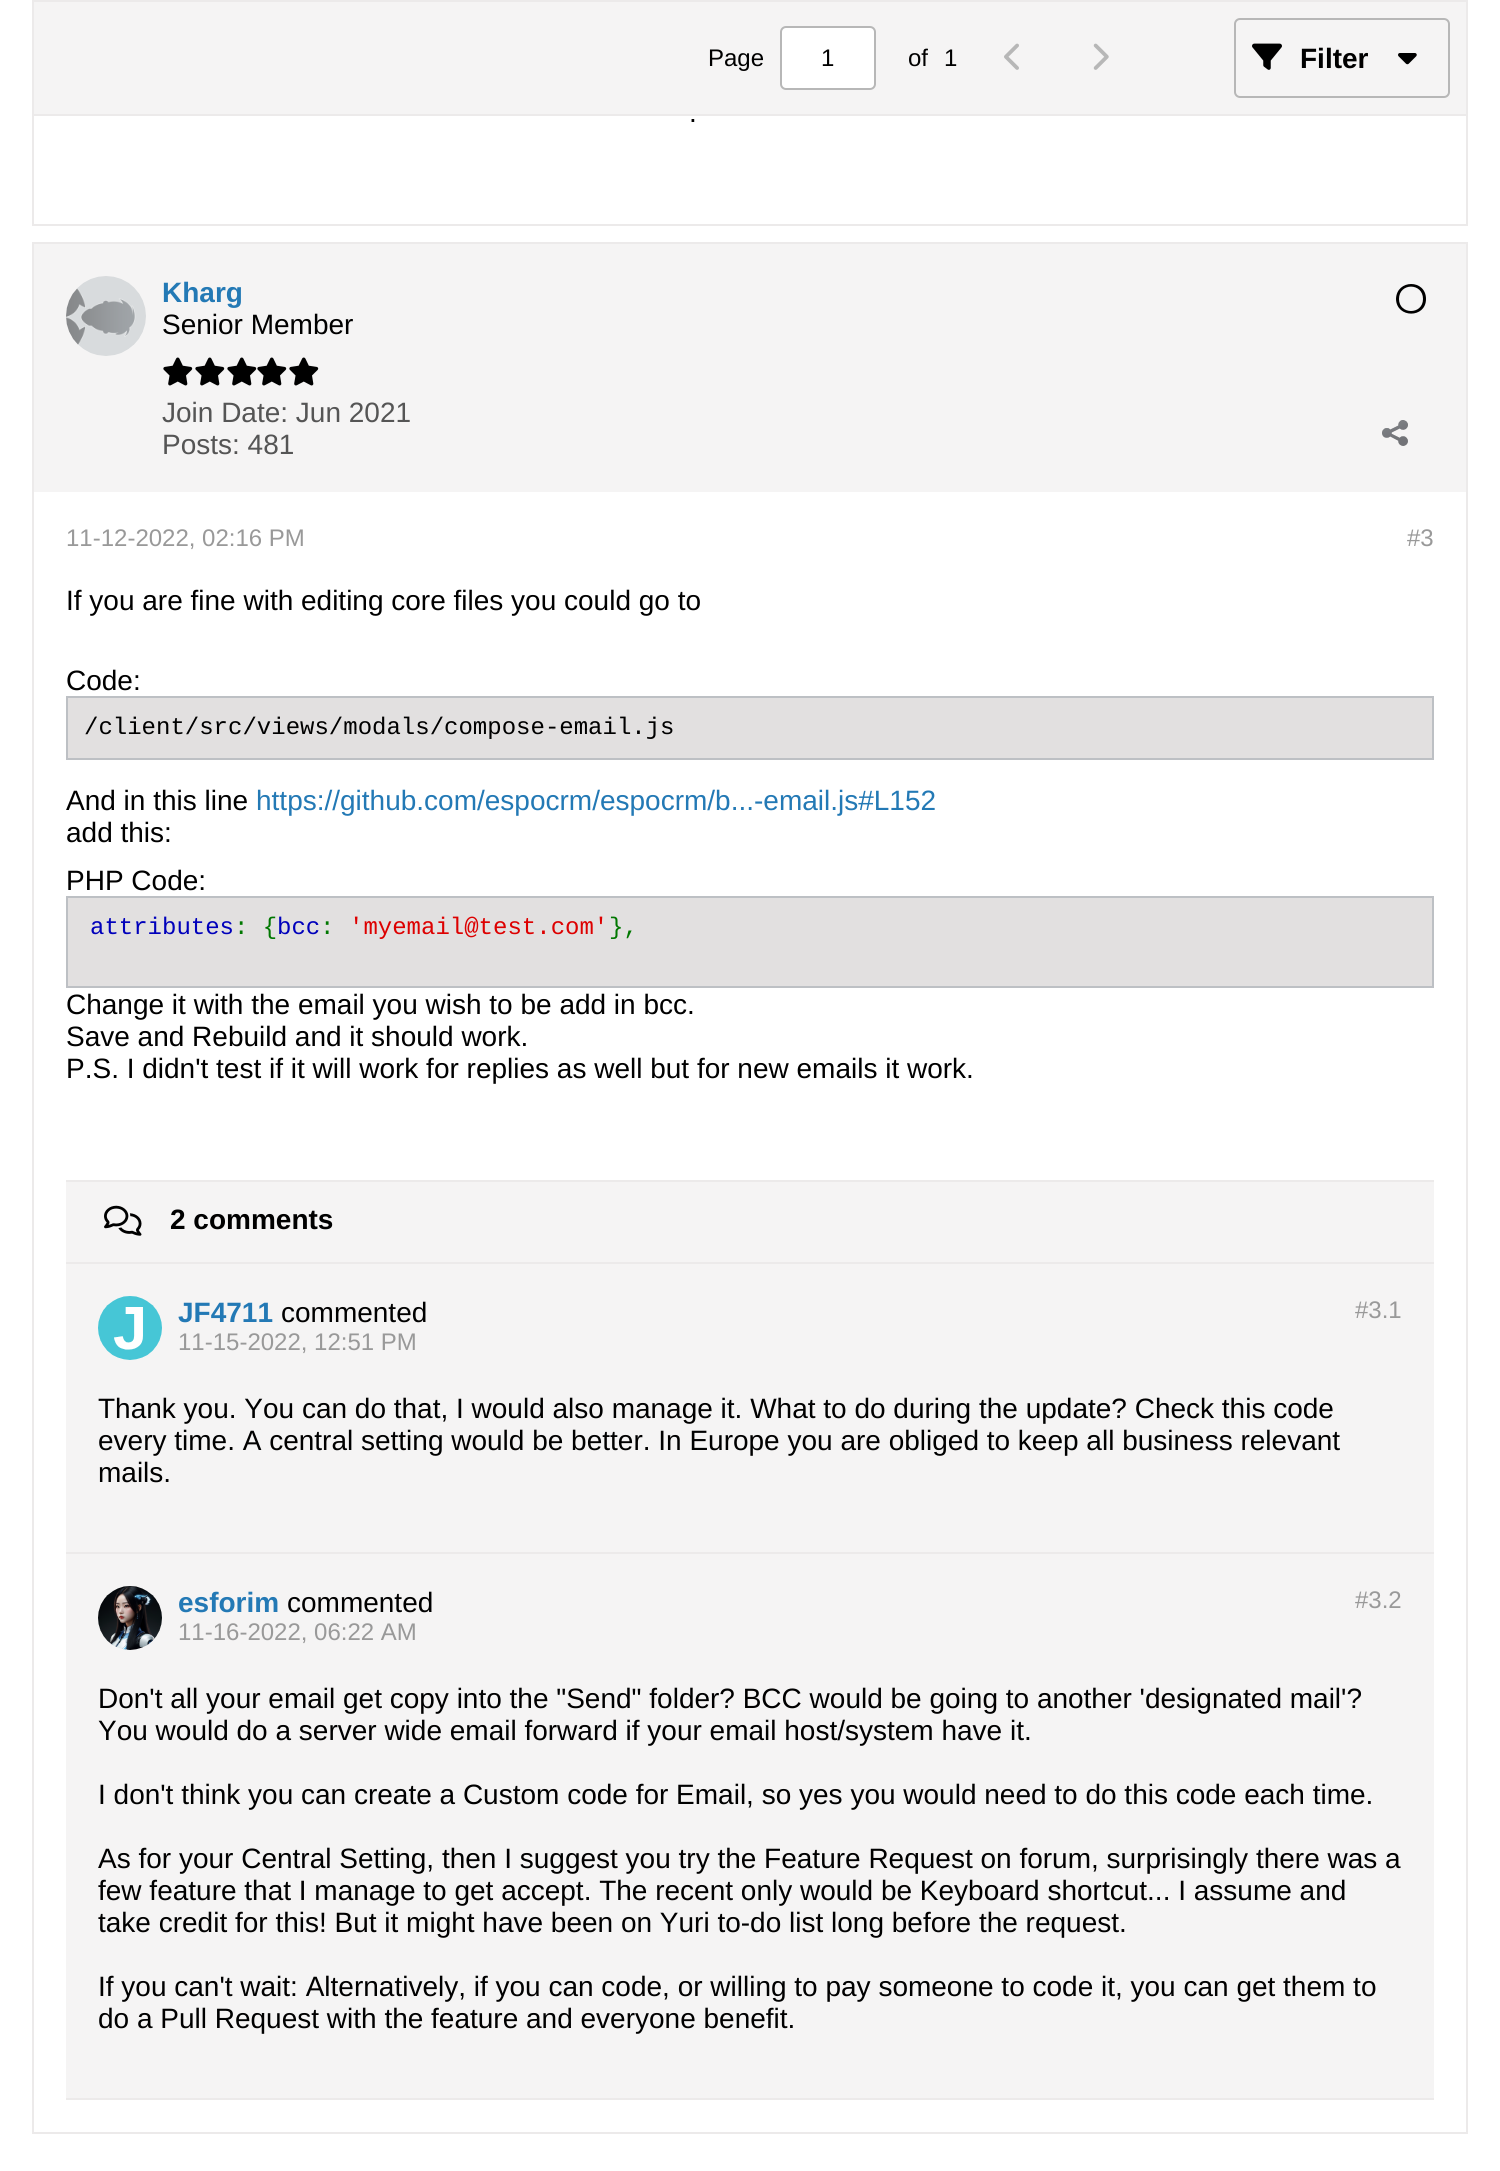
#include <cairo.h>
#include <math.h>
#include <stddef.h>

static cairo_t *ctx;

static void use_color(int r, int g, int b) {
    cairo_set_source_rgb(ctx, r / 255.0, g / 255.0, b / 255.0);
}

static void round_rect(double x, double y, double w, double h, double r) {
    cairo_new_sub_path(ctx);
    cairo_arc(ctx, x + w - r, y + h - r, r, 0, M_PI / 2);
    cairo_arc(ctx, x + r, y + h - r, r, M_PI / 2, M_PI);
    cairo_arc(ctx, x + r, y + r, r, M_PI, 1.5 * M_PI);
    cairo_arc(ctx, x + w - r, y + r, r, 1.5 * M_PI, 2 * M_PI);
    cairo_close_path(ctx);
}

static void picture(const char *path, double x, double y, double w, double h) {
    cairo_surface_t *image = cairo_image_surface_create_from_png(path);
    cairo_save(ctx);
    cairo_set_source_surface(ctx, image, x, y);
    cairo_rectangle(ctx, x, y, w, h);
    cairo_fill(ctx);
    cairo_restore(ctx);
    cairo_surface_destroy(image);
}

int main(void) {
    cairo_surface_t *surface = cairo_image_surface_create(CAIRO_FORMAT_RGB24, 1500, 2171);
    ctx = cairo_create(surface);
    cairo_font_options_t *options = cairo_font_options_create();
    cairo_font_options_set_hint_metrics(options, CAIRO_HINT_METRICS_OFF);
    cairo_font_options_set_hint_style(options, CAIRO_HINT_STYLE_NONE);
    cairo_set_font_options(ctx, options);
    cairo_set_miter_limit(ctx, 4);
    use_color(255, 255, 255);
    cairo_paint(ctx);
    cairo_rectangle(ctx, 33, -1, 1434, 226);
    use_color(236, 234, 234);
    cairo_stroke(ctx);
    use_color(245, 244, 244);
    cairo_rectangle(ctx, 33, 1, 1434, 114);
    cairo_fill_preserve(ctx);
    use_color(236, 234, 234);
    cairo_stroke(ctx);
    cairo_select_font_face(ctx, "Liberation Sans", CAIRO_FONT_SLANT_NORMAL, CAIRO_FONT_WEIGHT_NORMAL);
    cairo_set_font_size(ctx, 24);
    use_color(0, 0, 0);
    cairo_move_to(ctx, 708, 66);
    cairo_show_text(ctx, "Page");
    use_color(255, 255, 255);
    round_rect(781, 27, 94, 62, 5);
    cairo_fill_preserve(ctx);
    use_color(183, 183, 183);
    cairo_stroke(ctx);
    use_color(0, 0, 0);
    cairo_move_to(ctx, 821, 66);
    cairo_show_text(ctx, "1");
    cairo_move_to(ctx, 908, 66);
    cairo_show_text(ctx, "of");
    cairo_move_to(ctx, 944, 66);
    cairo_show_text(ctx, "1");
    picture("img1.png", 1004, 43, 15, 27);
    picture("img2.png", 1093, 43, 16, 27);
    round_rect(1235, 19, 214, 78, 5);
    use_color(183, 183, 183);
    cairo_stroke(ctx);
    picture("img3.png", 1252, 43, 30, 27);
    cairo_select_font_face(ctx, "Liberation Sans", CAIRO_FONT_SLANT_NORMAL, CAIRO_FONT_WEIGHT_BOLD);
    cairo_set_font_size(ctx, 28);
    use_color(0, 0, 0);
    cairo_move_to(ctx, 1300, 68);
    cairo_show_text(ctx, "Filter");
    picture("img4.png", 1398, 53, 19, 12);
    cairo_select_font_face(ctx, "Liberation Sans", CAIRO_FONT_SLANT_NORMAL, CAIRO_FONT_WEIGHT_NORMAL);
    cairo_move_to(ctx, 689, 122);
    cairo_show_text(ctx, ".");
    use_color(245, 244, 244);
    cairo_rectangle(ctx, 34, 244, 1432, 248);
    cairo_fill(ctx);
    cairo_rectangle(ctx, 33, 243, 1434, 1890);
    use_color(236, 234, 234);
    cairo_stroke(ctx);
    picture("img5.png", 66, 276, 80, 80);
    cairo_select_font_face(ctx, "Liberation Sans", CAIRO_FONT_SLANT_NORMAL, CAIRO_FONT_WEIGHT_BOLD);
    use_color(35, 121, 181);
    cairo_move_to(ctx, 162, 302);
    cairo_show_text(ctx, "Kharg");
    cairo_select_font_face(ctx, "Liberation Sans", CAIRO_FONT_SLANT_NORMAL, CAIRO_FONT_WEIGHT_NORMAL);
    use_color(0, 0, 0);
    cairo_move_to(ctx, 162, 334);
    cairo_show_text(ctx, "Senior Member");
    picture("img6.png", 163, 357, 30, 29);
    picture("img6.png", 195, 357, 30, 29);
    picture("img6.png", 227, 357, 30, 29);
    picture("img6.png", 257, 357, 30, 29);
    picture("img6.png", 289, 357, 30, 29);
    use_color(85, 85, 85);
    cairo_move_to(ctx, 162, 422);
    cairo_show_text(ctx, "Join Date: Jun 2021");
    cairo_move_to(ctx, 162, 454);
    cairo_show_text(ctx, "Posts: 481");
    use_color(0, 0, 0);
    cairo_new_path(ctx);
    cairo_move_to(ctx, 1423, 299);
    cairo_curve_to(ctx, 1423, 282.5, 1399, 282.5, 1399, 299);
    cairo_curve_to(ctx, 1399, 315, 1423, 315, 1423, 299);
    cairo_close_path(ctx);
    cairo_move_to(ctx, 1396, 299);
    cairo_curve_to(ctx, 1396.5, 279, 1426, 279, 1426, 299);
    cairo_curve_to(ctx, 1426, 318.5, 1396.5, 318.5, 1396, 299);
    cairo_close_path(ctx);
    cairo_fill(ctx);
    picture("img7.png", 1382, 420, 26, 26);
    cairo_set_font_size(ctx, 24);
    use_color(153, 153, 153);
    cairo_move_to(ctx, 66, 546);
    cairo_show_text(ctx, "11-12-2022, 02:16 PM");
    cairo_move_to(ctx, 1407, 546);
    cairo_show_text(ctx, "#3");
    cairo_set_font_size(ctx, 28);
    use_color(0, 0, 0);
    cairo_move_to(ctx, 66, 610);
    cairo_show_text(ctx, "If you are fine with editing core files you could go to");
    cairo_move_to(ctx, 66, 690);
    cairo_show_text(ctx, "Code:");
    use_color(226, 224, 224);
    cairo_rectangle(ctx, 67, 697, 1366, 62);
    cairo_fill_preserve(ctx);
    use_color(189, 192, 196);
    cairo_stroke(ctx);
    cairo_select_font_face(ctx, "Liberation Mono", CAIRO_FONT_SLANT_NORMAL, CAIRO_FONT_WEIGHT_NORMAL);
    cairo_set_font_size(ctx, 24);
    use_color(0, 0, 0);
    cairo_move_to(ctx, 84, 734);
    cairo_show_text(ctx, "/client/src/views/modals/compose-email.js");
    cairo_select_font_face(ctx, "Liberation Sans", CAIRO_FONT_SLANT_NORMAL, CAIRO_FONT_WEIGHT_NORMAL);
    cairo_set_font_size(ctx, 28);
    cairo_move_to(ctx, 66, 810);
    cairo_show_text(ctx, "And in this line");
    use_color(35, 121, 181);
    cairo_move_to(ctx, 256, 810);
    cairo_show_text(ctx, "https://github.com/espocrm/espocrm/b...-email.js#L152");
    use_color(0, 0, 0);
    cairo_move_to(ctx, 66, 842);
    cairo_show_text(ctx, "add this:");
    cairo_move_to(ctx, 66, 890);
    cairo_show_text(ctx, "PHP Code:");
    use_color(226, 224, 224);
    cairo_rectangle(ctx, 67, 897, 1366, 90);
    cairo_fill_preserve(ctx);
    use_color(189, 192, 196);
    cairo_stroke(ctx);
    cairo_select_font_face(ctx, "Liberation Mono", CAIRO_FONT_SLANT_NORMAL, CAIRO_FONT_WEIGHT_NORMAL);
    cairo_set_font_size(ctx, 24);
    use_color(0, 0, 187);
    cairo_move_to(ctx, 90, 934);
    cairo_show_text(ctx, "attributes");
    use_color(0, 119, 0);
    cairo_move_to(ctx, 234, 934);
    cairo_show_text(ctx, ": {");
    use_color(0, 0, 187);
    cairo_move_to(ctx, 277, 934);
    cairo_show_text(ctx, "bcc");
    use_color(0, 119, 0);
    cairo_move_to(ctx, 320, 934);
    cairo_show_text(ctx, ":");
    use_color(221, 0, 0);
    cairo_move_to(ctx, 349, 934);
    cairo_show_text(ctx, "'myemail@test.com'");
    use_color(0, 119, 0);
    cairo_move_to(ctx, 609, 934);
    cairo_show_text(ctx, "},");
    cairo_select_font_face(ctx, "Liberation Sans", CAIRO_FONT_SLANT_NORMAL, CAIRO_FONT_WEIGHT_NORMAL);
    cairo_set_font_size(ctx, 28);
    use_color(0, 0, 0);
    cairo_move_to(ctx, 66, 1014);
    cairo_show_text(ctx, "Change it with the email you wish to be add in bcc.");
    cairo_move_to(ctx, 66, 1046);
    cairo_show_text(ctx, "Save and Rebuild and it should work.");
    cairo_move_to(ctx, 66, 1078);
    cairo_show_text(ctx, "P.S. I didn't test if it will work for replies as well but for new emails it work.");
    use_color(245, 244, 244);
    cairo_rectangle(ctx, 66, 1182, 1368, 80);
    cairo_fill(ctx);
    use_color(236, 234, 234);
    cairo_rectangle(ctx, 66, 1180, 1368, 2);
    cairo_fill(ctx);
    cairo_rectangle(ctx, 66, 1262, 1368, 2);
    cairo_fill(ctx);
    picture("img8.png", 104, 1205, 38, 31);
    cairo_select_font_face(ctx, "Liberation Sans", CAIRO_FONT_SLANT_NORMAL, CAIRO_FONT_WEIGHT_BOLD);
    use_color(0, 0, 0);
    cairo_move_to(ctx, 170, 1229);
    cairo_show_text(ctx, "2 comments");
    use_color(236, 234, 234);
    cairo_rectangle(ctx, 66, 2098, 1368, 2);
    cairo_fill(ctx);
    use_color(245, 244, 244);
    cairo_rectangle(ctx, 66, 1264, 1368, 288);
    cairo_fill(ctx);
    picture("img9.png", 98, 1296, 64, 64);
    use_color(35, 121, 181);
    cairo_move_to(ctx, 178, 1322);
    cairo_show_text(ctx, "JF4711");
    cairo_select_font_face(ctx, "Liberation Sans", CAIRO_FONT_SLANT_NORMAL, CAIRO_FONT_WEIGHT_NORMAL);
    use_color(0, 0, 0);
    cairo_move_to(ctx, 281, 1322);
    cairo_show_text(ctx, "commented");
    cairo_set_font_size(ctx, 24);
    use_color(153, 153, 153);
    cairo_move_to(ctx, 178, 1350);
    cairo_show_text(ctx, "11-15-2022, 12:51 PM");
    cairo_move_to(ctx, 1355, 1318);
    cairo_show_text(ctx, "#3.1");
    cairo_set_font_size(ctx, 28);
    use_color(0, 0, 0);
    cairo_move_to(ctx, 98, 1418);
    cairo_show_text(ctx, "Thank you. You can do that, I would also manage it. What to do during the update? Check this code");
    cairo_move_to(ctx, 98, 1450);
    cairo_show_text(ctx, "every time. A central setting would be better. In Europe you are obliged to keep all business relevant");
    cairo_move_to(ctx, 98, 1482);
    cairo_show_text(ctx, "mails.");
    use_color(245, 244, 244);
    cairo_rectangle(ctx, 66, 1554, 1368, 544);
    cairo_fill(ctx);
    use_color(236, 234, 234);
    cairo_rectangle(ctx, 66, 1552, 1368, 2);
    cairo_fill(ctx);
    picture("img10.png", 98, 1586, 64, 64);
    cairo_select_font_face(ctx, "Liberation Sans", CAIRO_FONT_SLANT_NORMAL, CAIRO_FONT_WEIGHT_BOLD);
    use_color(35, 121, 181);
    cairo_move_to(ctx, 178, 1612);
    cairo_show_text(ctx, "esforim");
    cairo_select_font_face(ctx, "Liberation Sans", CAIRO_FONT_SLANT_NORMAL, CAIRO_FONT_WEIGHT_NORMAL);
    use_color(0, 0, 0);
    cairo_move_to(ctx, 287, 1612);
    cairo_show_text(ctx, "commented");
    cairo_set_font_size(ctx, 24);
    use_color(153, 153, 153);
    cairo_move_to(ctx, 178, 1640);
    cairo_show_text(ctx, "11-16-2022, 06:22 AM");
    cairo_move_to(ctx, 1355, 1608);
    cairo_show_text(ctx, "#3.2");
    cairo_set_font_size(ctx, 28);
    use_color(0, 0, 0);
    cairo_move_to(ctx, 98, 1708);
    cairo_show_text(ctx, "Don't all your email get copy into the \"Send\" folder? BCC would be going to another 'designated mail'?");
    cairo_move_to(ctx, 98, 1740);
    cairo_show_text(ctx, "You would do a server wide email forward if your email host/system have it.");
    cairo_move_to(ctx, 98, 1804);
    cairo_show_text(ctx, "I don't think you can create a Custom code for Email, so yes you would need to do this code each time.");
    cairo_move_to(ctx, 98, 1868);
    cairo_show_text(ctx, "As for your Central Setting, then I suggest you try the Feature Request on forum, surprisingly there was a");
    cairo_move_to(ctx, 98, 1900);
    cairo_show_text(ctx, "few feature that I manage to get accept. The recent only would be Keyboard shortcut... I assume and");
    cairo_move_to(ctx, 98, 1932);
    cairo_show_text(ctx, "take credit for this! But it might have been on Yuri to-do list long before the request.");
    cairo_move_to(ctx, 98, 1996);
    cairo_show_text(ctx, "If you can't wait: Alternatively, if you can code, or willing to pay someone to code it, you can get them to");
    cairo_move_to(ctx, 98, 2028);
    cairo_show_text(ctx, "do a Pull Request with the feature and everyone benefit.");
    cairo_surface_write_to_png(surface, "result.png");
    cairo_font_options_destroy(options);
    cairo_destroy(ctx);
    cairo_surface_destroy(surface);
    return 0;
}
